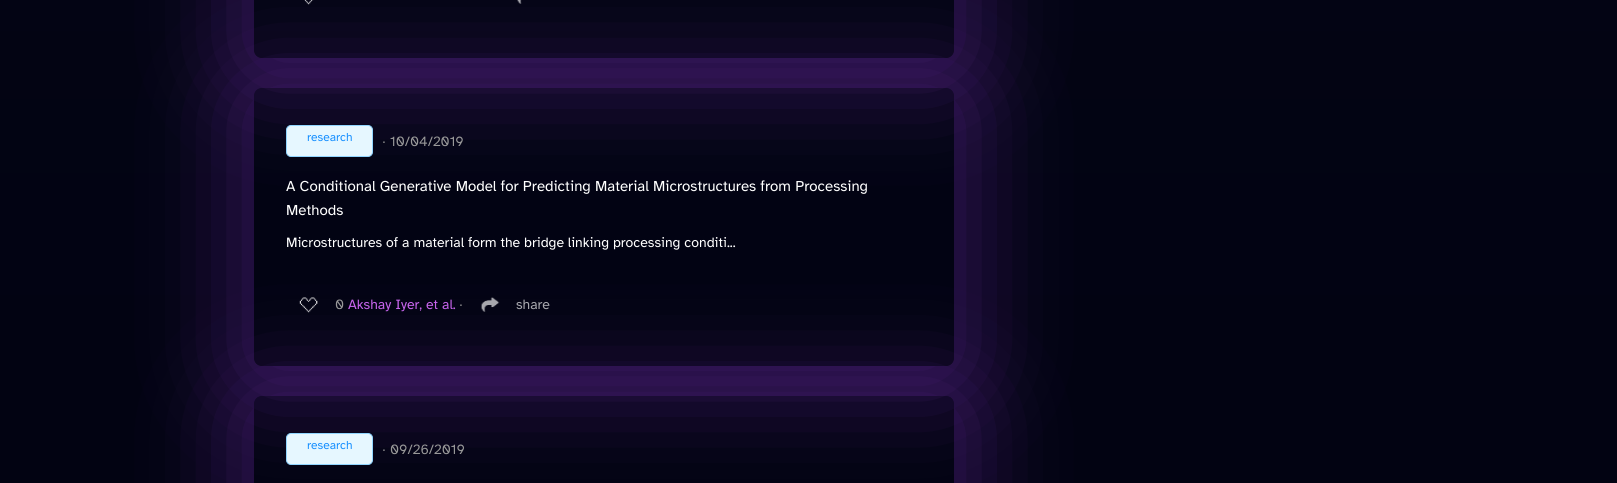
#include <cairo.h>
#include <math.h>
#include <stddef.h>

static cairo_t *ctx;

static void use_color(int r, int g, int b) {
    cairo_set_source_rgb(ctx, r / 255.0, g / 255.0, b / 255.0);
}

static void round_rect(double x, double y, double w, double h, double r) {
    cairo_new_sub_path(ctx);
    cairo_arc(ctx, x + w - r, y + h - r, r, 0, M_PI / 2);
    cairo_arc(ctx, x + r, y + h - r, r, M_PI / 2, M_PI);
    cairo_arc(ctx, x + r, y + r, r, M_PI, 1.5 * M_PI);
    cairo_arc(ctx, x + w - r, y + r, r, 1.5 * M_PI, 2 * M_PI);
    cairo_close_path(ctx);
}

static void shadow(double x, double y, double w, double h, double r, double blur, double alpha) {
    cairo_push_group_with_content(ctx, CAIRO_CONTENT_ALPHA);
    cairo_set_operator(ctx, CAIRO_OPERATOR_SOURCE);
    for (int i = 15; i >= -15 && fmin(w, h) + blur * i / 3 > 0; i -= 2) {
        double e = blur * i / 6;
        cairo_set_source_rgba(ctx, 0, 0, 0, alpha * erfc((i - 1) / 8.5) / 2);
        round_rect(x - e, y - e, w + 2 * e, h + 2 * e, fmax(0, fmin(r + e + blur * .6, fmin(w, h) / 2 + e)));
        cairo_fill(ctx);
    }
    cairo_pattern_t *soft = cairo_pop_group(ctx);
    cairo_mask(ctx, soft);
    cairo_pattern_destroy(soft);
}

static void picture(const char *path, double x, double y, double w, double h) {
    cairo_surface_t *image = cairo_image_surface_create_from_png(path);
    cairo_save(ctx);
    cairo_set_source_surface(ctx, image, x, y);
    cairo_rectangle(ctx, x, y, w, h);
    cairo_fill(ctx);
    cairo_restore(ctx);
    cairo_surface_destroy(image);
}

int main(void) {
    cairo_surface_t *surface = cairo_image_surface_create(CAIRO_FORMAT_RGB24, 1617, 483);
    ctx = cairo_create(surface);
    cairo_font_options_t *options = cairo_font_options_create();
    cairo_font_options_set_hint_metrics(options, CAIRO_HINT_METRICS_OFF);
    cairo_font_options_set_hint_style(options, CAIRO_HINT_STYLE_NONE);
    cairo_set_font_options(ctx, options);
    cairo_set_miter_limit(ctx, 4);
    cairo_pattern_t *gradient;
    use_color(255, 255, 255);
    cairo_paint(ctx);
    gradient = cairo_pattern_create_linear(808, -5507, 809, 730);
    cairo_pattern_add_color_stop_rgba(gradient, 0, 0.467, 0.161, 0.667, 1);
    cairo_pattern_add_color_stop_rgba(gradient, 0.12, 0.09, 0.039, 0.176, 1);
    cairo_pattern_add_color_stop_rgba(gradient, 0.18, 0.039, 0.024, 0.114, 1);
    cairo_pattern_add_color_stop_rgba(gradient, 0.44, 0.039, 0.024, 0.118, 1);
    cairo_pattern_add_color_stop_rgba(gradient, 0.99, 0.004, 0.012, 0.067, 1);
    cairo_set_source(ctx, gradient);
    cairo_pattern_destroy(gradient);
    cairo_rectangle(ctx, 0, 0, 1617, 483);
    cairo_fill(ctx);
    cairo_save(ctx);
    cairo_set_fill_rule(ctx, CAIRO_FILL_RULE_EVEN_ODD);
    cairo_new_path(ctx);
    cairo_move_to(ctx, 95, 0);
    cairo_line_to(ctx, 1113, 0);
    cairo_line_to(ctx, 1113, 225);
    cairo_line_to(ctx, 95, 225);
    cairo_close_path(ctx);
    cairo_move_to(ctx, 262, -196);
    cairo_line_to(ctx, 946, -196);
    cairo_curve_to(ctx, 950.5, -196, 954, -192.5, 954, -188);
    cairo_line_to(ctx, 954, 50);
    cairo_curve_to(ctx, 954, 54.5, 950.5, 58, 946, 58);
    cairo_line_to(ctx, 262, 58);
    cairo_curve_to(ctx, 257.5, 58, 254, 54.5, 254, 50);
    cairo_line_to(ctx, 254, -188);
    cairo_curve_to(ctx, 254, -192.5, 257.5, -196, 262, -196);
    cairo_close_path(ctx);
    cairo_clip(ctx);
    use_color(71, 28, 115);
    shadow(234, -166, 740, 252, 28, 46, 0.7);
    cairo_restore(ctx);
    cairo_save(ctx);
    cairo_set_fill_rule(ctx, CAIRO_FILL_RULE_EVEN_ODD);
    cairo_new_path(ctx);
    cairo_move_to(ctx, 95, 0);
    cairo_line_to(ctx, 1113, 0);
    cairo_line_to(ctx, 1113, 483);
    cairo_line_to(ctx, 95, 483);
    cairo_close_path(ctx);
    cairo_move_to(ctx, 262, 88);
    cairo_line_to(ctx, 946, 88);
    cairo_curve_to(ctx, 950.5, 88, 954, 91.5, 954, 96);
    cairo_line_to(ctx, 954, 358);
    cairo_curve_to(ctx, 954, 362.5, 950.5, 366, 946, 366);
    cairo_line_to(ctx, 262, 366);
    cairo_curve_to(ctx, 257.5, 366, 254, 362.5, 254, 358);
    cairo_line_to(ctx, 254, 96);
    cairo_curve_to(ctx, 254, 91.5, 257.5, 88, 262, 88);
    cairo_close_path(ctx);
    cairo_clip(ctx);
    use_color(71, 28, 115);
    shadow(234, 76, 740, 318, 28, 46, 0.7);
    cairo_restore(ctx);
    picture("img1.png", 304, 0, 10, 5);
    picture("img2.png", 517, 0, 5, 4);
    use_color(230, 247, 255);
    round_rect(286.5, 125.5, 86, 31, 4.5);
    cairo_fill_preserve(ctx);
    use_color(145, 213, 255);
    cairo_set_line_width(ctx, 1);
    cairo_stroke(ctx);
    cairo_select_font_face(ctx, "Atkinson Hyperlegible", CAIRO_FONT_SLANT_NORMAL, CAIRO_FONT_WEIGHT_NORMAL);
    cairo_set_font_size(ctx, 12);
    use_color(24, 144, 255);
    cairo_move_to(ctx, 307, 141);
    cairo_show_text(ctx, "research");
    cairo_select_font_face(ctx, "Liberation Sans", CAIRO_FONT_SLANT_NORMAL, CAIRO_FONT_WEIGHT_NORMAL);
    cairo_set_font_size(ctx, 14);
    use_color(153, 153, 153);
    cairo_move_to(ctx, 382, 146);
    cairo_show_text(ctx, "∙");
    cairo_select_font_face(ctx, "Atkinson Hyperlegible", CAIRO_FONT_SLANT_NORMAL, CAIRO_FONT_WEIGHT_NORMAL);
    cairo_move_to(ctx, 390, 146);
    cairo_show_text(ctx, "10/04/2019");
    cairo_set_font_size(ctx, 15);
    use_color(255, 255, 255);
    cairo_move_to(ctx, 286, 191);
    cairo_show_text(ctx, "A Conditional Generative Model for Predicting Material Microstructures from Processing");
    cairo_move_to(ctx, 286, 215);
    cairo_show_text(ctx, "Methods");
    cairo_save(ctx);
    cairo_set_fill_rule(ctx, CAIRO_FILL_RULE_EVEN_ODD);
    cairo_new_path(ctx);
    cairo_move_to(ctx, 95, 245);
    cairo_line_to(ctx, 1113, 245);
    cairo_line_to(ctx, 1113, 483);
    cairo_line_to(ctx, 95, 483);
    cairo_close_path(ctx);
    cairo_move_to(ctx, 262, 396);
    cairo_line_to(ctx, 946, 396);
    cairo_curve_to(ctx, 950.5, 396, 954, 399.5, 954, 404);
    cairo_line_to(ctx, 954, 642);
    cairo_curve_to(ctx, 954, 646.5, 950.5, 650, 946, 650);
    cairo_line_to(ctx, 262, 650);
    cairo_curve_to(ctx, 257.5, 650, 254, 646.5, 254, 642);
    cairo_line_to(ctx, 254, 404);
    cairo_curve_to(ctx, 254, 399.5, 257.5, 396, 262, 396);
    cairo_close_path(ctx);
    cairo_clip(ctx);
    use_color(71, 28, 115);
    shadow(234, 384, 740, 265, 28, 46, 0.7);
    cairo_restore(ctx);
    cairo_set_font_size(ctx, 14);
    cairo_move_to(ctx, 286, 247);
    cairo_show_text(ctx, "Microstructures of a material form the bridge linking processing conditi...");
    picture("img3.png", 299, 297, 19, 16);
    use_color(153, 153, 153);
    cairo_move_to(ctx, 335, 309);
    cairo_show_text(ctx, "0");
    use_color(199, 100, 236);
    cairo_move_to(ctx, 348, 309);
    cairo_show_text(ctx, "Akshay Iyer, et al.");
    cairo_select_font_face(ctx, "Liberation Sans", CAIRO_FONT_SLANT_NORMAL, CAIRO_FONT_WEIGHT_NORMAL);
    use_color(153, 153, 153);
    cairo_move_to(ctx, 459, 309);
    cairo_show_text(ctx, "∙");
    picture("img4.png", 481, 297, 19, 15);
    cairo_select_font_face(ctx, "Atkinson Hyperlegible", CAIRO_FONT_SLANT_NORMAL, CAIRO_FONT_WEIGHT_NORMAL);
    use_color(167, 167, 173);
    cairo_move_to(ctx, 516, 309);
    cairo_show_text(ctx, "share");
    use_color(230, 247, 255);
    round_rect(286.5, 433.5, 86, 31, 4.5);
    cairo_fill_preserve(ctx);
    use_color(145, 213, 255);
    cairo_stroke(ctx);
    cairo_set_font_size(ctx, 12);
    use_color(24, 144, 255);
    cairo_move_to(ctx, 307, 449);
    cairo_show_text(ctx, "research");
    cairo_select_font_face(ctx, "Liberation Sans", CAIRO_FONT_SLANT_NORMAL, CAIRO_FONT_WEIGHT_NORMAL);
    cairo_set_font_size(ctx, 14);
    use_color(153, 153, 153);
    cairo_move_to(ctx, 382, 454);
    cairo_show_text(ctx, "∙");
    cairo_select_font_face(ctx, "Atkinson Hyperlegible", CAIRO_FONT_SLANT_NORMAL, CAIRO_FONT_WEIGHT_NORMAL);
    cairo_move_to(ctx, 390, 454);
    cairo_show_text(ctx, "09/26/2019");
    cairo_surface_write_to_png(surface, "result.png");
    cairo_font_options_destroy(options);
    cairo_destroy(ctx);
    cairo_surface_destroy(surface);
    return 0;
}
